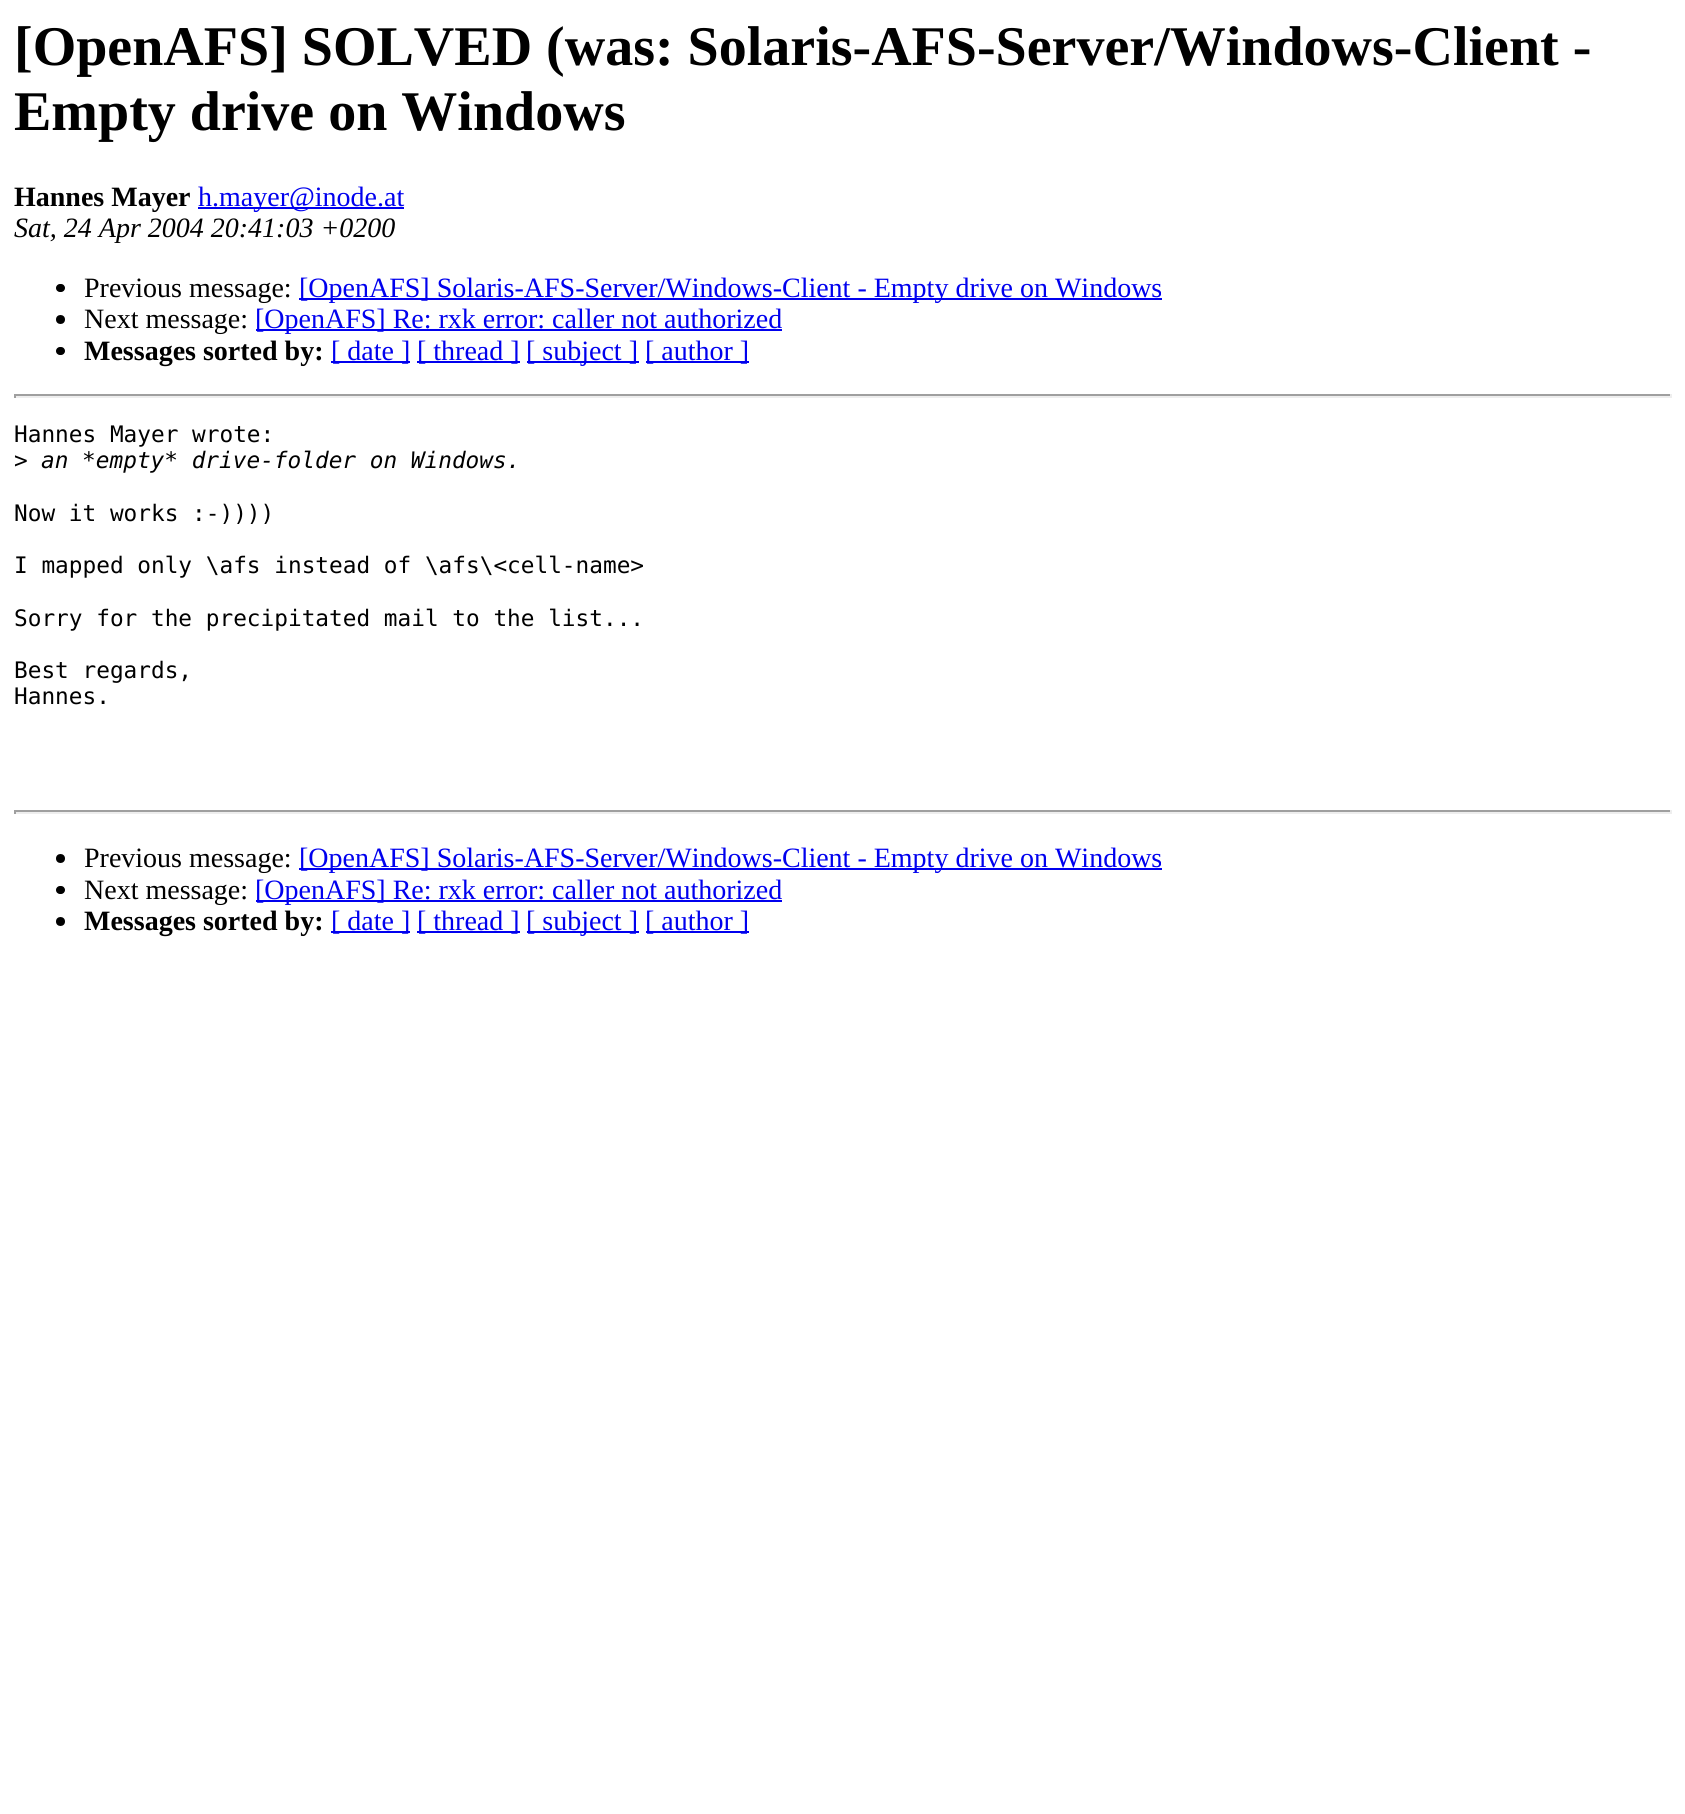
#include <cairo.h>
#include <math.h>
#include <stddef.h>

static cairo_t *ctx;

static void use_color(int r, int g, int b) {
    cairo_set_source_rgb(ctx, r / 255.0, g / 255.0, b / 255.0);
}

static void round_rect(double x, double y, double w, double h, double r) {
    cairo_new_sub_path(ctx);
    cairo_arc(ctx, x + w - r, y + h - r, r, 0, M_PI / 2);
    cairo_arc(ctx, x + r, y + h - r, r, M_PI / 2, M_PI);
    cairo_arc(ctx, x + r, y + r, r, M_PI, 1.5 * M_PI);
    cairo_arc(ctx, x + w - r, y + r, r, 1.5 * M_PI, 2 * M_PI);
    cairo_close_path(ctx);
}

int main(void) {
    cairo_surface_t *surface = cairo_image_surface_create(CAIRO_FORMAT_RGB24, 1685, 1814);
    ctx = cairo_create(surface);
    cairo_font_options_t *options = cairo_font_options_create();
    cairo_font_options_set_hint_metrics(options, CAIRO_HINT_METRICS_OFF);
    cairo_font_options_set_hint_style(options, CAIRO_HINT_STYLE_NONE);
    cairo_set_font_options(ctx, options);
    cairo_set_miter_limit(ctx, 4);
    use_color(255, 255, 255);
    cairo_paint(ctx);
    cairo_select_font_face(ctx, "Liberation Serif", CAIRO_FONT_SLANT_NORMAL, CAIRO_FONT_WEIGHT_BOLD);
    cairo_set_font_size(ctx, 56);
    use_color(0, 0, 0);
    cairo_move_to(ctx, 14, 65);
    cairo_show_text(ctx, "[OpenAFS] SOLVED (was: Solaris-AFS-Server/Windows-Client -");
    cairo_move_to(ctx, 14, 130);
    cairo_show_text(ctx, "Empty drive on Windows");
    cairo_set_font_size(ctx, 28);
    cairo_move_to(ctx, 14, 206);
    cairo_show_text(ctx, "Hannes Mayer");
    use_color(0, 0, 238);
    cairo_rectangle(ctx, 198, 207, 206, 2);
    cairo_fill(ctx);
    cairo_select_font_face(ctx, "Liberation Serif", CAIRO_FONT_SLANT_NORMAL, CAIRO_FONT_WEIGHT_NORMAL);
    cairo_move_to(ctx, 198, 206);
    cairo_show_text(ctx, "h.mayer@inode.at");
    cairo_select_font_face(ctx, "Liberation Serif", CAIRO_FONT_SLANT_ITALIC, CAIRO_FONT_WEIGHT_NORMAL);
    use_color(0, 0, 0);
    cairo_move_to(ctx, 14, 237);
    cairo_show_text(ctx, "Sat, 24 Apr 2004 20:41:03 +0200");
    round_rect(56, 284, 9, 8, 4);
    cairo_fill(ctx);
    cairo_select_font_face(ctx, "Liberation Serif", CAIRO_FONT_SLANT_NORMAL, CAIRO_FONT_WEIGHT_NORMAL);
    cairo_move_to(ctx, 84, 297);
    cairo_show_text(ctx, "Previous message:");
    use_color(0, 0, 238);
    cairo_rectangle(ctx, 299, 298, 863, 2);
    cairo_fill(ctx);
    cairo_move_to(ctx, 299, 297);
    cairo_show_text(ctx, "[OpenAFS] Solaris-AFS-Server/Windows-Client - Empty drive on Windows");
    use_color(0, 0, 0);
    cairo_new_path(ctx);
    cairo_arc(ctx, 60.5, 319.5, 4.5, 0, 2 * M_PI);
    cairo_fill(ctx);
    cairo_move_to(ctx, 84, 328);
    cairo_show_text(ctx, "Next message:");
    use_color(0, 0, 238);
    cairo_rectangle(ctx, 256, 329, 526, 2);
    cairo_fill(ctx);
    cairo_move_to(ctx, 255, 328);
    cairo_show_text(ctx, "[OpenAFS] Re: rxk error: caller not authorized");
    use_color(0, 0, 0);
    round_rect(56, 347, 9, 8, 4);
    cairo_fill(ctx);
    cairo_select_font_face(ctx, "Liberation Serif", CAIRO_FONT_SLANT_NORMAL, CAIRO_FONT_WEIGHT_BOLD);
    cairo_move_to(ctx, 84, 360);
    cairo_show_text(ctx, "Messages sorted by:");
    use_color(0, 0, 238);
    cairo_rectangle(ctx, 331, 361, 79, 2);
    cairo_fill(ctx);
    cairo_select_font_face(ctx, "Liberation Serif", CAIRO_FONT_SLANT_NORMAL, CAIRO_FONT_WEIGHT_NORMAL);
    cairo_move_to(ctx, 331, 360);
    cairo_show_text(ctx, "[ date ]");
    cairo_rectangle(ctx, 417, 361, 103, 2);
    cairo_fill(ctx);
    cairo_move_to(ctx, 417, 360);
    cairo_show_text(ctx, "[ thread ]");
    cairo_rectangle(ctx, 527, 361, 112, 2);
    cairo_fill(ctx);
    cairo_move_to(ctx, 526, 360);
    cairo_show_text(ctx, "[ subject ]");
    cairo_rectangle(ctx, 646, 361, 103, 2);
    cairo_fill(ctx);
    cairo_move_to(ctx, 645, 360);
    cairo_show_text(ctx, "[ author ]");
    use_color(159, 159, 159);
    cairo_rectangle(ctx, 14, 394, 1657, 2);
    cairo_fill(ctx);
    use_color(238, 238, 238);
    cairo_rectangle(ctx, 1670, 394, 2, 4);
    cairo_fill(ctx);
    cairo_rectangle(ctx, 14, 396, 1657, 2);
    cairo_fill(ctx);
    use_color(159, 159, 159);
    cairo_rectangle(ctx, 14, 394, 2, 4);
    cairo_fill(ctx);
    cairo_select_font_face(ctx, "DejaVu Sans Mono", CAIRO_FONT_SLANT_NORMAL, CAIRO_FONT_WEIGHT_NORMAL);
    cairo_set_font_size(ctx, 22.75);
    use_color(0, 0, 0);
    cairo_move_to(ctx, 14, 442);
    cairo_show_text(ctx, "Hannes Mayer wrote:");
    cairo_move_to(ctx, 14, 468);
    cairo_show_text(ctx, ">");
    cairo_select_font_face(ctx, "DejaVu Sans Mono", CAIRO_FONT_SLANT_ITALIC, CAIRO_FONT_WEIGHT_NORMAL);
    cairo_move_to(ctx, 41, 468);
    cairo_show_text(ctx, "an *empty* drive-folder on Windows.");
    cairo_select_font_face(ctx, "DejaVu Sans Mono", CAIRO_FONT_SLANT_NORMAL, CAIRO_FONT_WEIGHT_NORMAL);
    cairo_move_to(ctx, 14, 521);
    cairo_show_text(ctx, "Now it works :-))))");
    cairo_move_to(ctx, 14, 573);
    cairo_show_text(ctx, "I mapped only \\afs instead of \\afs\\<cell-name>");
    cairo_move_to(ctx, 14, 626);
    cairo_show_text(ctx, "Sorry for the precipitated mail to the list...");
    cairo_move_to(ctx, 14, 678);
    cairo_show_text(ctx, "Best regards,");
    cairo_move_to(ctx, 14, 704);
    cairo_show_text(ctx, "Hannes.");
    use_color(159, 159, 159);
    cairo_rectangle(ctx, 14, 810, 1657, 2);
    cairo_fill(ctx);
    use_color(238, 238, 238);
    cairo_rectangle(ctx, 1670, 810, 2, 4);
    cairo_fill(ctx);
    cairo_rectangle(ctx, 14, 812, 1657, 2);
    cairo_fill(ctx);
    use_color(159, 159, 159);
    cairo_rectangle(ctx, 14, 810, 2, 4);
    cairo_fill(ctx);
    use_color(0, 0, 0);
    cairo_arc(ctx, 60.5, 858.5, 4.5, 0, 2 * M_PI);
    cairo_fill(ctx);
    cairo_select_font_face(ctx, "Liberation Serif", CAIRO_FONT_SLANT_NORMAL, CAIRO_FONT_WEIGHT_NORMAL);
    cairo_set_font_size(ctx, 28);
    cairo_move_to(ctx, 84, 867);
    cairo_show_text(ctx, "Previous message:");
    use_color(0, 0, 238);
    cairo_rectangle(ctx, 299, 868, 863, 2);
    cairo_fill(ctx);
    cairo_move_to(ctx, 299, 867);
    cairo_show_text(ctx, "[OpenAFS] Solaris-AFS-Server/Windows-Client - Empty drive on Windows");
    use_color(0, 0, 0);
    round_rect(56, 886, 9, 8, 4);
    cairo_fill(ctx);
    cairo_move_to(ctx, 84, 899);
    cairo_show_text(ctx, "Next message:");
    use_color(0, 0, 238);
    cairo_rectangle(ctx, 256, 900, 526, 2);
    cairo_fill(ctx);
    cairo_move_to(ctx, 255, 899);
    cairo_show_text(ctx, "[OpenAFS] Re: rxk error: caller not authorized");
    use_color(0, 0, 0);
    cairo_new_path(ctx);
    cairo_arc(ctx, 60.5, 921.5, 4.5, 0, 2 * M_PI);
    cairo_fill(ctx);
    cairo_select_font_face(ctx, "Liberation Serif", CAIRO_FONT_SLANT_NORMAL, CAIRO_FONT_WEIGHT_BOLD);
    cairo_move_to(ctx, 84, 930);
    cairo_show_text(ctx, "Messages sorted by:");
    use_color(0, 0, 238);
    cairo_rectangle(ctx, 331, 931, 79, 2);
    cairo_fill(ctx);
    cairo_select_font_face(ctx, "Liberation Serif", CAIRO_FONT_SLANT_NORMAL, CAIRO_FONT_WEIGHT_NORMAL);
    cairo_move_to(ctx, 331, 930);
    cairo_show_text(ctx, "[ date ]");
    cairo_rectangle(ctx, 417, 931, 103, 2);
    cairo_fill(ctx);
    cairo_move_to(ctx, 417, 930);
    cairo_show_text(ctx, "[ thread ]");
    cairo_rectangle(ctx, 527, 931, 112, 2);
    cairo_fill(ctx);
    cairo_move_to(ctx, 526, 930);
    cairo_show_text(ctx, "[ subject ]");
    cairo_rectangle(ctx, 646, 931, 103, 2);
    cairo_fill(ctx);
    cairo_move_to(ctx, 645, 930);
    cairo_show_text(ctx, "[ author ]");
    cairo_surface_write_to_png(surface, "result.png");
    cairo_font_options_destroy(options);
    cairo_destroy(ctx);
    cairo_surface_destroy(surface);
    return 0;
}
